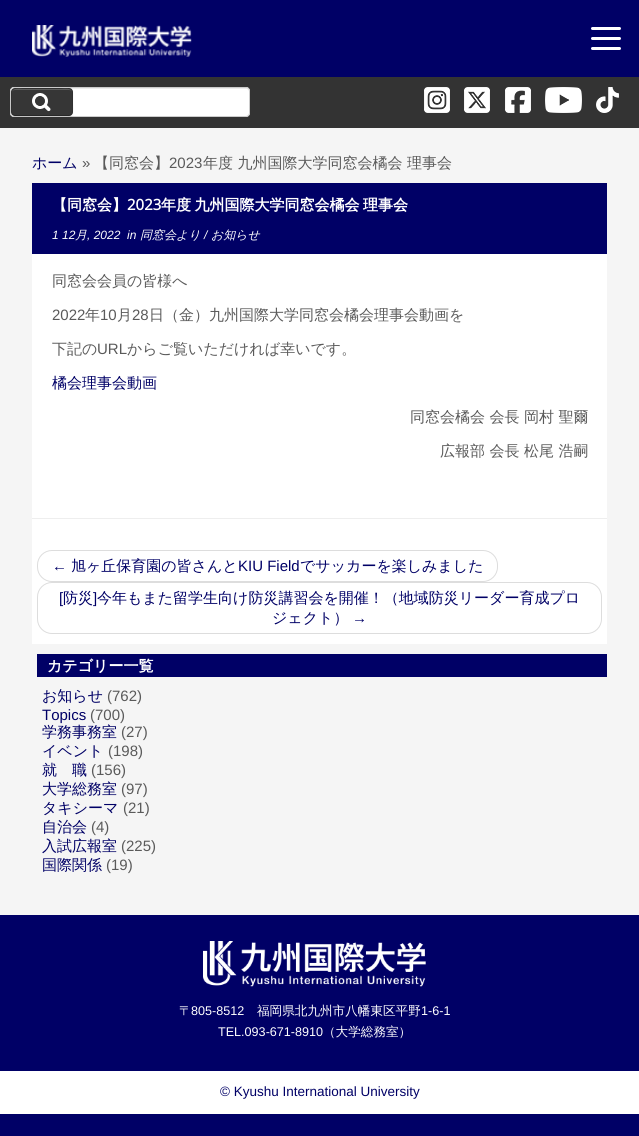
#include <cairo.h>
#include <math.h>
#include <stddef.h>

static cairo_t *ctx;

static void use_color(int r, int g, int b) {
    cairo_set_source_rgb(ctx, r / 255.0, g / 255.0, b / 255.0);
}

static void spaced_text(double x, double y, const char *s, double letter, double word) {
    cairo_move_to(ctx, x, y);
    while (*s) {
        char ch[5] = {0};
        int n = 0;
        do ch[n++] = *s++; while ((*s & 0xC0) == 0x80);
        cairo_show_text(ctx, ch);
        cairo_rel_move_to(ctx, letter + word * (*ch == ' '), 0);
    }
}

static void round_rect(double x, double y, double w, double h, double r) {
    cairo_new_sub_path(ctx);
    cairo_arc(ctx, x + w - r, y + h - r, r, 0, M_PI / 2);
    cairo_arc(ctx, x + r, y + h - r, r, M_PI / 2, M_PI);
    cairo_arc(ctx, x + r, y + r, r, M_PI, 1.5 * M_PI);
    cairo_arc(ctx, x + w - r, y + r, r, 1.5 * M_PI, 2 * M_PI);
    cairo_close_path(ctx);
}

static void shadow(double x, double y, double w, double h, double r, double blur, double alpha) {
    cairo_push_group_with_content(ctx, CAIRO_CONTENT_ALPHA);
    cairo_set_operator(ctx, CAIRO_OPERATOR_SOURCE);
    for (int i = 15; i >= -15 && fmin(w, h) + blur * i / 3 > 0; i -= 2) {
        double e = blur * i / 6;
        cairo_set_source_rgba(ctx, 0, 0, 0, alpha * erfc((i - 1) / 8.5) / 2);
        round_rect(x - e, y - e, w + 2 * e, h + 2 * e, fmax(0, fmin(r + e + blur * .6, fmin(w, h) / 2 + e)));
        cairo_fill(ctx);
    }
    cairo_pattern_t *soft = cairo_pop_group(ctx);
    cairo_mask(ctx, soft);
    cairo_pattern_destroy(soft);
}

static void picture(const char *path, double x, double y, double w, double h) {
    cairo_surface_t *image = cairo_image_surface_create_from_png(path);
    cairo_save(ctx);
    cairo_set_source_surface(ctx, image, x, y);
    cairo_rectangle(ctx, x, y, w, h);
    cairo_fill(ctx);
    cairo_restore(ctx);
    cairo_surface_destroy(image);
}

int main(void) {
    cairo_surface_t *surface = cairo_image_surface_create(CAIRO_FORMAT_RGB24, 639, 1136);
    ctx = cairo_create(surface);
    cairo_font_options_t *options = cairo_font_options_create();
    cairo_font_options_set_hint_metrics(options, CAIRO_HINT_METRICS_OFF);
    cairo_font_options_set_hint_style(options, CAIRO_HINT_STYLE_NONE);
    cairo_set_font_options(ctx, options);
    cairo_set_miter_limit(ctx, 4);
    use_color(245, 245, 245);
    cairo_paint(ctx);
    use_color(0, 0, 102);
    cairo_rectangle(ctx, 0, 0, 639, 77);
    cairo_fill(ctx);
    picture("img1.png", 32, 25, 160, 32);
    use_color(255, 255, 255);
    round_rect(591, 27, 30, 3, 1.5);
    cairo_fill(ctx);
    round_rect(591, 37, 30, 3, 1.5);
    cairo_fill(ctx);
    round_rect(591, 47, 30, 3, 1.5);
    cairo_fill(ctx);
    use_color(51, 51, 51);
    cairo_rectangle(ctx, 0, 77, 639, 51);
    cairo_fill(ctx);
    use_color(255, 255, 255);
    round_rect(10, 87, 240, 30, 4);
    cairo_fill(ctx);
    use_color(236, 236, 236);
    cairo_new_path(ctx);
    cairo_move_to(ctx, 14, 89);
    cairo_line_to(ctx, 247, 89);
    cairo_line_to(ctx, 249, 90);
    cairo_line_to(ctx, 249, 92);
    cairo_curve_to(ctx, 249, 90, 248, 88, 246, 88);
    cairo_line_to(ctx, 14, 88);
    cairo_curve_to(ctx, 12, 88, 11, 90, 11, 92);
    cairo_curve_to(ctx, 11, 90, 12, 89, 14, 89);
    cairo_close_path(ctx);
    cairo_fill(ctx);
    round_rect(10.5, 87.5, 239, 29, 3.5);
    use_color(204, 204, 204);
    cairo_set_line_width(ctx, 1);
    cairo_stroke(ctx);
    use_color(0, 0, 0);
    shadow(11, 89, 62, 28, 4, 1, 0.05);
    use_color(54, 54, 54);
    round_rect(11, 88, 62, 28, 4);
    cairo_fill(ctx);
    picture("img2.png", 32, 93, 19, 19);
    use_color(94, 94, 94);
    cairo_new_path(ctx);
    cairo_move_to(ctx, 15, 90);
    cairo_line_to(ctx, 69, 90);
    cairo_curve_to(ctx, 71, 90, 72, 91, 72, 93);
    cairo_curve_to(ctx, 72, 87, 64, 89, 60, 89);
    cairo_line_to(ctx, 24, 89);
    cairo_curve_to(ctx, 20, 89, 12, 87, 12, 93);
    cairo_curve_to(ctx, 12, 91, 13, 90, 15, 90);
    cairo_close_path(ctx);
    cairo_fill(ctx);
    cairo_new_path(ctx);
    cairo_move_to(ctx, 71.5, 114.5);
    cairo_line_to(ctx, 69.5, 115.5);
    cairo_line_to(ctx, 14.5, 115.5);
    cairo_line_to(ctx, 12.5, 114.5);
    cairo_set_source_rgba(ctx, 0, 0, 0, 0.25);
    cairo_stroke(ctx);
    cairo_new_path(ctx);
    cairo_move_to(ctx, 12.5, 114.5);
    cairo_curve_to(ctx, 10.5, 112, 11.5, 104.5, 11.5, 102);
    cairo_curve_to(ctx, 11.5, 87.5, 9.5, 88.5, 24, 88.5);
    cairo_line_to(ctx, 60, 88.5);
    cairo_curve_to(ctx, 74.5, 88.5, 72.5, 87.5, 72.5, 102);
    cairo_curve_to(ctx, 72.5, 104.5, 73.5, 112, 71.5, 114.5);
    cairo_set_source_rgba(ctx, 0, 0, 0, 0.1);
    cairo_stroke(ctx);
    picture("img3.png", 424, 87, 26, 26);
    picture("img4.png", 464, 87, 26, 26);
    picture("img5.png", 505, 87, 26, 26);
    picture("img6.png", 545, 87, 37, 26);
    picture("img7.png", 596, 87, 23, 26);
    cairo_select_font_face(ctx, "WenQuanYi Zen Hei Medium", CAIRO_FONT_SLANT_NORMAL, CAIRO_FONT_WEIGHT_NORMAL);
    cairo_set_font_size(ctx, 15);
    use_color(0, 0, 102);
    cairo_move_to(ctx, 32, 168);
    cairo_show_text(ctx, "ホーム");
    cairo_select_font_face(ctx, "Liberation Sans", CAIRO_FONT_SLANT_NORMAL, CAIRO_FONT_WEIGHT_NORMAL);
    use_color(90, 90, 90);
    cairo_move_to(ctx, 82, 168);
    cairo_show_text(ctx, "»");
    cairo_select_font_face(ctx, "WenQuanYi Zen Hei Medium", CAIRO_FONT_SLANT_NORMAL, CAIRO_FONT_WEIGHT_NORMAL);
    cairo_move_to(ctx, 94, 168);
    cairo_show_text(ctx, "【同窓会】");
    cairo_select_font_face(ctx, "Liberation Sans", CAIRO_FONT_SLANT_NORMAL, CAIRO_FONT_WEIGHT_NORMAL);
    cairo_move_to(ctx, 169, 168);
    cairo_show_text(ctx, "2023");
    cairo_select_font_face(ctx, "WenQuanYi Zen Hei Medium", CAIRO_FONT_SLANT_NORMAL, CAIRO_FONT_WEIGHT_NORMAL);
    cairo_move_to(ctx, 203, 168);
    cairo_show_text(ctx, "年度 九州国際大学同窓会橘会 理事会");
    use_color(255, 255, 255);
    cairo_rectangle(ctx, 32, 254, 575, 390);
    cairo_fill(ctx);
    use_color(0, 0, 102);
    cairo_rectangle(ctx, 32, 183, 575, 71);
    cairo_fill(ctx);
    cairo_select_font_face(ctx, "WenQuanYi Zen Hei", CAIRO_FONT_SLANT_NORMAL, CAIRO_FONT_WEIGHT_BOLD);
    use_color(255, 255, 255);
    cairo_move_to(ctx, 52, 210);
    cairo_show_text(ctx, "【同窓会】");
    cairo_select_font_face(ctx, "Open Sans", CAIRO_FONT_SLANT_NORMAL, CAIRO_FONT_WEIGHT_BOLD);
    cairo_move_to(ctx, 127, 210);
    cairo_show_text(ctx, "2023");
    cairo_select_font_face(ctx, "WenQuanYi Zen Hei", CAIRO_FONT_SLANT_NORMAL, CAIRO_FONT_WEIGHT_BOLD);
    spaced_text(161, 210, "年度 九州国際大学同窓会橘会 理事会", 0, -1);
    cairo_select_font_face(ctx, "Liberation Sans", CAIRO_FONT_SLANT_ITALIC, CAIRO_FONT_WEIGHT_NORMAL);
    cairo_set_font_size(ctx, 12);
    cairo_move_to(ctx, 52, 239);
    cairo_show_text(ctx, "1 12");
    cairo_select_font_face(ctx, "WenQuanYi Zen Hei Medium", CAIRO_FONT_SLANT_ITALIC, CAIRO_FONT_WEIGHT_NORMAL);
    cairo_move_to(ctx, 75, 239);
    cairo_show_text(ctx, "月");
    cairo_select_font_face(ctx, "Liberation Sans", CAIRO_FONT_SLANT_ITALIC, CAIRO_FONT_WEIGHT_NORMAL);
    cairo_move_to(ctx, 87, 239);
    cairo_show_text(ctx, ", 2022");
    cairo_move_to(ctx, 127, 239);
    cairo_show_text(ctx, "in");
    cairo_select_font_face(ctx, "WenQuanYi Zen Hei Medium", CAIRO_FONT_SLANT_ITALIC, CAIRO_FONT_WEIGHT_NORMAL);
    cairo_move_to(ctx, 140, 239);
    cairo_show_text(ctx, "同窓会より");
    cairo_select_font_face(ctx, "Liberation Sans", CAIRO_FONT_SLANT_ITALIC, CAIRO_FONT_WEIGHT_NORMAL);
    cairo_move_to(ctx, 204, 239);
    cairo_show_text(ctx, "/");
    cairo_select_font_face(ctx, "WenQuanYi Zen Hei Medium", CAIRO_FONT_SLANT_ITALIC, CAIRO_FONT_WEIGHT_NORMAL);
    cairo_move_to(ctx, 211, 239);
    cairo_show_text(ctx, "お知らせ");
    cairo_select_font_face(ctx, "WenQuanYi Zen Hei Medium", CAIRO_FONT_SLANT_NORMAL, CAIRO_FONT_WEIGHT_NORMAL);
    cairo_set_font_size(ctx, 15);
    use_color(90, 90, 90);
    cairo_move_to(ctx, 52, 286);
    cairo_show_text(ctx, "同窓会会員の皆様へ");
    cairo_select_font_face(ctx, "Liberation Sans", CAIRO_FONT_SLANT_NORMAL, CAIRO_FONT_WEIGHT_NORMAL);
    cairo_move_to(ctx, 52, 320);
    cairo_show_text(ctx, "2022");
    cairo_select_font_face(ctx, "WenQuanYi Zen Hei Medium", CAIRO_FONT_SLANT_NORMAL, CAIRO_FONT_WEIGHT_NORMAL);
    cairo_move_to(ctx, 85, 320);
    cairo_show_text(ctx, "年");
    cairo_select_font_face(ctx, "Liberation Sans", CAIRO_FONT_SLANT_NORMAL, CAIRO_FONT_WEIGHT_NORMAL);
    cairo_move_to(ctx, 100, 320);
    cairo_show_text(ctx, "10");
    cairo_select_font_face(ctx, "WenQuanYi Zen Hei Medium", CAIRO_FONT_SLANT_NORMAL, CAIRO_FONT_WEIGHT_NORMAL);
    cairo_move_to(ctx, 117, 320);
    cairo_show_text(ctx, "月");
    cairo_select_font_face(ctx, "Liberation Sans", CAIRO_FONT_SLANT_NORMAL, CAIRO_FONT_WEIGHT_NORMAL);
    cairo_move_to(ctx, 132, 320);
    cairo_show_text(ctx, "28");
    cairo_select_font_face(ctx, "WenQuanYi Zen Hei Medium", CAIRO_FONT_SLANT_NORMAL, CAIRO_FONT_WEIGHT_NORMAL);
    cairo_move_to(ctx, 149, 320);
    cairo_show_text(ctx, "日（金）九州国際大学同窓会橘会理事会動画を");
    cairo_move_to(ctx, 52, 354);
    cairo_show_text(ctx, "下記の");
    cairo_select_font_face(ctx, "Liberation Sans", CAIRO_FONT_SLANT_NORMAL, CAIRO_FONT_WEIGHT_NORMAL);
    cairo_move_to(ctx, 97, 354);
    cairo_show_text(ctx, "URL");
    cairo_select_font_face(ctx, "WenQuanYi Zen Hei Medium", CAIRO_FONT_SLANT_NORMAL, CAIRO_FONT_WEIGHT_NORMAL);
    cairo_move_to(ctx, 127, 354);
    cairo_show_text(ctx, "からご覧いただければ幸いです。");
    use_color(0, 0, 102);
    cairo_move_to(ctx, 52, 388);
    cairo_show_text(ctx, "橘会理事会動画");
    use_color(90, 90, 90);
    cairo_move_to(ctx, 410, 422);
    cairo_show_text(ctx, "同窓会橘会 会長 岡村 聖爾");
    cairo_move_to(ctx, 440, 456);
    cairo_show_text(ctx, "広報部 会長 松尾 浩嗣");
    use_color(238, 238, 238);
    cairo_rectangle(ctx, 32, 518, 575, 1);
    cairo_fill(ctx);
    round_rect(37.5, 550.5, 460, 31, 14.5);
    use_color(221, 221, 221);
    cairo_stroke(ctx);
    cairo_select_font_face(ctx, "Liberation Sans", CAIRO_FONT_SLANT_NORMAL, CAIRO_FONT_WEIGHT_NORMAL);
    use_color(0, 0, 102);
    cairo_move_to(ctx, 52, 571);
    cairo_show_text(ctx, "←");
    cairo_select_font_face(ctx, "WenQuanYi Zen Hei Medium", CAIRO_FONT_SLANT_NORMAL, CAIRO_FONT_WEIGHT_NORMAL);
    cairo_move_to(ctx, 71, 571);
    cairo_show_text(ctx, "旭ヶ丘保育園の皆さんと");
    cairo_select_font_face(ctx, "Liberation Sans", CAIRO_FONT_SLANT_NORMAL, CAIRO_FONT_WEIGHT_NORMAL);
    cairo_move_to(ctx, 238, 571);
    cairo_show_text(ctx, "KIU Field");
    cairo_select_font_face(ctx, "WenQuanYi Zen Hei Medium", CAIRO_FONT_SLANT_NORMAL, CAIRO_FONT_WEIGHT_NORMAL);
    cairo_move_to(ctx, 300, 571);
    cairo_show_text(ctx, "でサッカーを楽しみました");
    round_rect(37.5, 582.5, 564, 51, 14.5);
    use_color(221, 221, 221);
    cairo_stroke(ctx);
    cairo_select_font_face(ctx, "Liberation Sans", CAIRO_FONT_SLANT_NORMAL, CAIRO_FONT_WEIGHT_NORMAL);
    use_color(0, 0, 102);
    cairo_move_to(ctx, 59, 603);
    cairo_show_text(ctx, "[");
    cairo_select_font_face(ctx, "WenQuanYi Zen Hei Medium", CAIRO_FONT_SLANT_NORMAL, CAIRO_FONT_WEIGHT_NORMAL);
    cairo_move_to(ctx, 63, 603);
    cairo_show_text(ctx, "防災");
    cairo_select_font_face(ctx, "Liberation Sans", CAIRO_FONT_SLANT_NORMAL, CAIRO_FONT_WEIGHT_NORMAL);
    cairo_move_to(ctx, 93, 603);
    cairo_show_text(ctx, "]");
    cairo_select_font_face(ctx, "WenQuanYi Zen Hei Medium", CAIRO_FONT_SLANT_NORMAL, CAIRO_FONT_WEIGHT_NORMAL);
    cairo_move_to(ctx, 97, 603);
    cairo_show_text(ctx, "今年もまた留学生向け防災講習会を開催！（地域防災リーダー育成プロ");
    cairo_move_to(ctx, 272, 623);
    cairo_show_text(ctx, "ジェクト）");
    cairo_select_font_face(ctx, "Liberation Sans", CAIRO_FONT_SLANT_NORMAL, CAIRO_FONT_WEIGHT_NORMAL);
    cairo_move_to(ctx, 352, 623);
    cairo_show_text(ctx, "→");
    cairo_rectangle(ctx, 37, 654, 570, 23);
    cairo_fill(ctx);
    cairo_select_font_face(ctx, "WenQuanYi Zen Hei", CAIRO_FONT_SLANT_NORMAL, CAIRO_FONT_WEIGHT_BOLD);
    use_color(255, 255, 255);
    cairo_move_to(ctx, 47, 671);
    cairo_show_text(ctx, "カテゴリー一覧");
    cairo_select_font_face(ctx, "WenQuanYi Zen Hei Medium", CAIRO_FONT_SLANT_NORMAL, CAIRO_FONT_WEIGHT_NORMAL);
    use_color(0, 0, 102);
    cairo_move_to(ctx, 42, 701);
    cairo_show_text(ctx, "お知らせ");
    cairo_select_font_face(ctx, "Liberation Sans", CAIRO_FONT_SLANT_NORMAL, CAIRO_FONT_WEIGHT_NORMAL);
    use_color(90, 90, 90);
    cairo_move_to(ctx, 107, 701);
    cairo_show_text(ctx, "(762)");
    use_color(0, 0, 102);
    cairo_move_to(ctx, 42, 720);
    cairo_show_text(ctx, "Topics");
    use_color(90, 90, 90);
    cairo_move_to(ctx, 90, 720);
    cairo_show_text(ctx, "(700)");
    cairo_select_font_face(ctx, "WenQuanYi Zen Hei Medium", CAIRO_FONT_SLANT_NORMAL, CAIRO_FONT_WEIGHT_NORMAL);
    use_color(0, 0, 102);
    cairo_move_to(ctx, 42, 737);
    cairo_show_text(ctx, "学務事務室");
    cairo_select_font_face(ctx, "Liberation Sans", CAIRO_FONT_SLANT_NORMAL, CAIRO_FONT_WEIGHT_NORMAL);
    use_color(90, 90, 90);
    cairo_move_to(ctx, 121, 737);
    cairo_show_text(ctx, "(27)");
    cairo_select_font_face(ctx, "WenQuanYi Zen Hei Medium", CAIRO_FONT_SLANT_NORMAL, CAIRO_FONT_WEIGHT_NORMAL);
    use_color(0, 0, 102);
    cairo_move_to(ctx, 42, 756);
    cairo_show_text(ctx, "イベント");
    cairo_select_font_face(ctx, "Liberation Sans", CAIRO_FONT_SLANT_NORMAL, CAIRO_FONT_WEIGHT_NORMAL);
    use_color(90, 90, 90);
    cairo_move_to(ctx, 108, 756);
    cairo_show_text(ctx, "(198)");
    cairo_select_font_face(ctx, "WenQuanYi Zen Hei Medium", CAIRO_FONT_SLANT_NORMAL, CAIRO_FONT_WEIGHT_NORMAL);
    use_color(0, 0, 102);
    cairo_move_to(ctx, 42, 775);
    cairo_show_text(ctx, "就　職");
    cairo_select_font_face(ctx, "Liberation Sans", CAIRO_FONT_SLANT_NORMAL, CAIRO_FONT_WEIGHT_NORMAL);
    use_color(90, 90, 90);
    cairo_move_to(ctx, 91, 775);
    cairo_show_text(ctx, "(156)");
    cairo_select_font_face(ctx, "WenQuanYi Zen Hei Medium", CAIRO_FONT_SLANT_NORMAL, CAIRO_FONT_WEIGHT_NORMAL);
    use_color(0, 0, 102);
    cairo_move_to(ctx, 42, 794);
    cairo_show_text(ctx, "大学総務室");
    cairo_select_font_face(ctx, "Liberation Sans", CAIRO_FONT_SLANT_NORMAL, CAIRO_FONT_WEIGHT_NORMAL);
    use_color(90, 90, 90);
    cairo_move_to(ctx, 121, 794);
    cairo_show_text(ctx, "(97)");
    cairo_select_font_face(ctx, "WenQuanYi Zen Hei Medium", CAIRO_FONT_SLANT_NORMAL, CAIRO_FONT_WEIGHT_NORMAL);
    use_color(0, 0, 102);
    cairo_move_to(ctx, 42, 813);
    cairo_show_text(ctx, "タキシーマ");
    cairo_select_font_face(ctx, "Liberation Sans", CAIRO_FONT_SLANT_NORMAL, CAIRO_FONT_WEIGHT_NORMAL);
    use_color(90, 90, 90);
    cairo_move_to(ctx, 123, 813);
    cairo_show_text(ctx, "(21)");
    cairo_select_font_face(ctx, "WenQuanYi Zen Hei Medium", CAIRO_FONT_SLANT_NORMAL, CAIRO_FONT_WEIGHT_NORMAL);
    use_color(0, 0, 102);
    cairo_move_to(ctx, 42, 832);
    cairo_show_text(ctx, "自治会");
    cairo_select_font_face(ctx, "Liberation Sans", CAIRO_FONT_SLANT_NORMAL, CAIRO_FONT_WEIGHT_NORMAL);
    use_color(90, 90, 90);
    cairo_move_to(ctx, 91, 832);
    cairo_show_text(ctx, "(4)");
    cairo_select_font_face(ctx, "WenQuanYi Zen Hei Medium", CAIRO_FONT_SLANT_NORMAL, CAIRO_FONT_WEIGHT_NORMAL);
    use_color(0, 0, 102);
    cairo_move_to(ctx, 42, 851);
    cairo_show_text(ctx, "入試広報室");
    cairo_select_font_face(ctx, "Liberation Sans", CAIRO_FONT_SLANT_NORMAL, CAIRO_FONT_WEIGHT_NORMAL);
    use_color(90, 90, 90);
    cairo_move_to(ctx, 121, 851);
    cairo_show_text(ctx, "(225)");
    cairo_select_font_face(ctx, "WenQuanYi Zen Hei Medium", CAIRO_FONT_SLANT_NORMAL, CAIRO_FONT_WEIGHT_NORMAL);
    use_color(0, 0, 102);
    cairo_move_to(ctx, 42, 870);
    cairo_show_text(ctx, "国際関係");
    cairo_select_font_face(ctx, "Liberation Sans", CAIRO_FONT_SLANT_NORMAL, CAIRO_FONT_WEIGHT_NORMAL);
    use_color(90, 90, 90);
    cairo_move_to(ctx, 106, 870);
    cairo_show_text(ctx, "(19)");
    use_color(0, 0, 102);
    cairo_rectangle(ctx, 0, 915, 639, 221);
    cairo_fill(ctx);
    picture("img8.png", 203, 941, 223, 46);
    cairo_select_font_face(ctx, "WenQuanYi Zen Hei Medium", CAIRO_FONT_SLANT_NORMAL, CAIRO_FONT_WEIGHT_NORMAL);
    cairo_set_font_size(ctx, 12.6);
    use_color(255, 255, 255);
    cairo_move_to(ctx, 179, 1015);
    cairo_show_text(ctx, "〒");
    cairo_select_font_face(ctx, "Liberation Sans", CAIRO_FONT_SLANT_NORMAL, CAIRO_FONT_WEIGHT_NORMAL);
    cairo_move_to(ctx, 191, 1015);
    cairo_show_text(ctx, "805-8512");
    cairo_select_font_face(ctx, "WenQuanYi Zen Hei Medium", CAIRO_FONT_SLANT_NORMAL, CAIRO_FONT_WEIGHT_NORMAL);
    cairo_move_to(ctx, 257, 1015);
    cairo_show_text(ctx, "福岡県北九州市八幡東区平野");
    cairo_select_font_face(ctx, "Liberation Sans", CAIRO_FONT_SLANT_NORMAL, CAIRO_FONT_WEIGHT_NORMAL);
    cairo_move_to(ctx, 421, 1015);
    cairo_show_text(ctx, "1-6-1");
    cairo_move_to(ctx, 218, 1036);
    cairo_show_text(ctx, "TEL.093-671-8910");
    cairo_select_font_face(ctx, "WenQuanYi Zen Hei Medium", CAIRO_FONT_SLANT_NORMAL, CAIRO_FONT_WEIGHT_NORMAL);
    cairo_move_to(ctx, 323, 1036);
    cairo_show_text(ctx, "（大学総務室）");
    cairo_rectangle(ctx, 0, 1071, 639, 43);
    cairo_fill(ctx);
    cairo_select_font_face(ctx, "Liberation Sans", CAIRO_FONT_SLANT_NORMAL, CAIRO_FONT_WEIGHT_NORMAL);
    cairo_set_font_size(ctx, 13.5);
    use_color(0, 0, 102);
    cairo_move_to(ctx, 220, 1096);
    cairo_show_text(ctx, "© Kyushu International University");
    cairo_surface_write_to_png(surface, "result.png");
    cairo_font_options_destroy(options);
    cairo_destroy(ctx);
    cairo_surface_destroy(surface);
    return 0;
}
